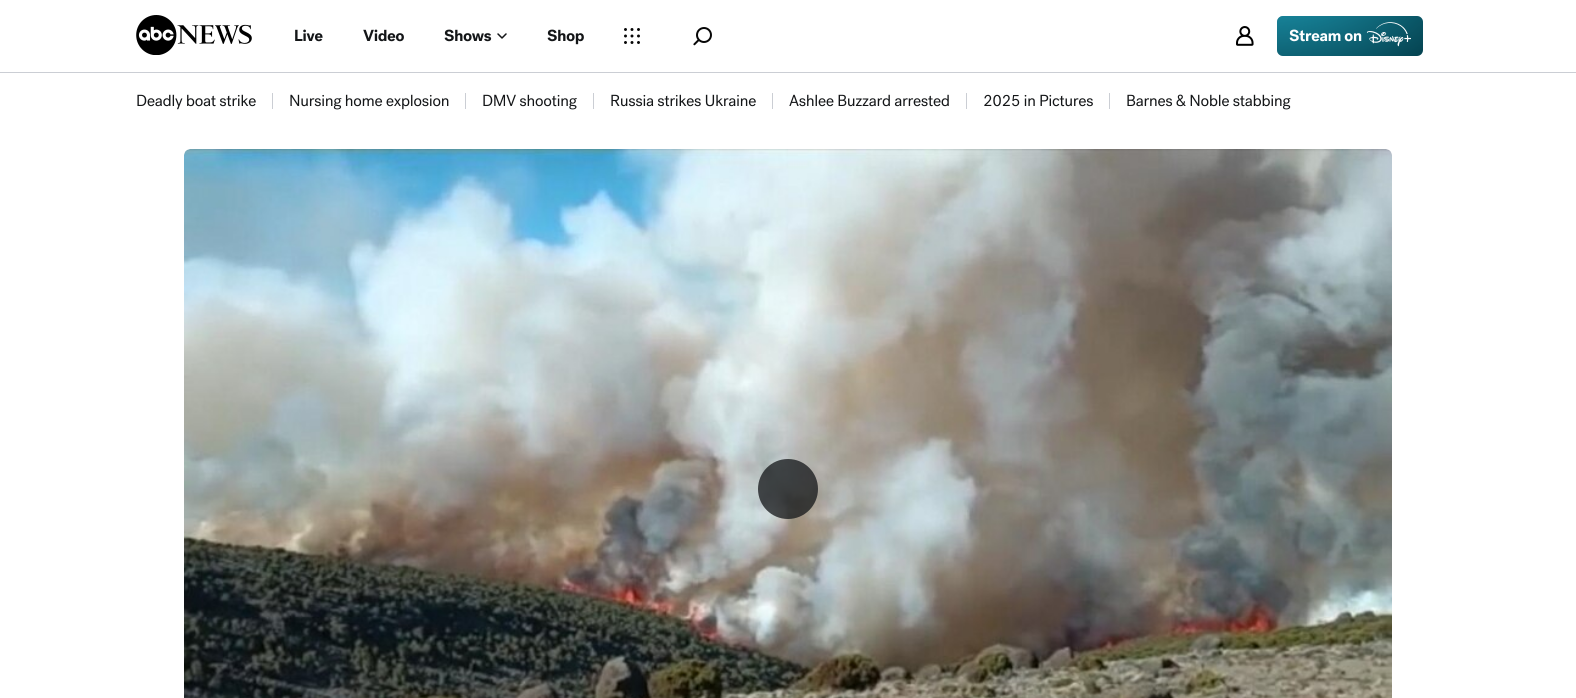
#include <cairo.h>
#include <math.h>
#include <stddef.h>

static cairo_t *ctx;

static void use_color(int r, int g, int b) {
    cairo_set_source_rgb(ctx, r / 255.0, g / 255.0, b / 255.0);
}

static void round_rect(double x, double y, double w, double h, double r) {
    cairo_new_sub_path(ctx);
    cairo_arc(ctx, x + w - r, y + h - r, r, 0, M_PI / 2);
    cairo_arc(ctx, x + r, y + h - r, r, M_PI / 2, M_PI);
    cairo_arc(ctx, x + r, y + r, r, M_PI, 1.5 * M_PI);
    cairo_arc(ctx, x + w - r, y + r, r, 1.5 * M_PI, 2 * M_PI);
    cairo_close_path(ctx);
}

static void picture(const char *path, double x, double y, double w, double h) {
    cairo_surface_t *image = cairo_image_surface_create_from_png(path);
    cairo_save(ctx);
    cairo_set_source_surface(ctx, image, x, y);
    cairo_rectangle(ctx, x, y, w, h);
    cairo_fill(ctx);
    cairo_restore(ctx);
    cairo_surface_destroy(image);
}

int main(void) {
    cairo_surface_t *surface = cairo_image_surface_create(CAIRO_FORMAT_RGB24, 1576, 698);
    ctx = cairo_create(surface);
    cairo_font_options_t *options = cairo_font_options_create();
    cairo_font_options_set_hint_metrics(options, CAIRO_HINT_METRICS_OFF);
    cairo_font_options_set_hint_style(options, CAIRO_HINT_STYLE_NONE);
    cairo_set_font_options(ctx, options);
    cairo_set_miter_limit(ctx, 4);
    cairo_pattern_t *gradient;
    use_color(255, 255, 255);
    cairo_paint(ctx);
    picture("img1.png", 136, 15, 116, 40);
    picture("img2.png", 295, 29, 28, 13);
    picture("img3.png", 363, 29, 41, 13);
    picture("img4.png", 444, 29, 48, 13);
    picture("img5.png", 497, 33, 10, 6);
    picture("img6.png", 547, 29, 37, 16);
    picture("img7.png", 624, 28, 16, 16);
    picture("img8.png", 693, 27, 19, 19);
    picture("img9.png", 1236, 26, 18, 20);
    use_color(5, 69, 83);
    round_rect(1277, 16, 146, 40, 6);
    cairo_fill(ctx);
    gradient = cairo_pattern_create_radial(0, 0, 0, 0, 0, 1);
    cairo_pattern_set_matrix(gradient, &(cairo_matrix_t){1.0 / 219, 0, 0, 1.0 / 140, -1.0 * 1262 / 219, -1.0 * -44 / 140});
    cairo_pattern_add_color_stop_rgba(gradient, 0, 0.2, 0.867, 1, 0.7);
    cairo_pattern_add_color_stop_rgba(gradient, 1, 0.2, 0.867, 1, 0);
    cairo_set_source(ctx, gradient);
    cairo_pattern_destroy(gradient);
    round_rect(1277, 16, 146, 40, 6);
    cairo_fill(ctx);
    picture("img10.png", 1289, 29, 73, 13);
    picture("img11.png", 1366, 22, 45, 25);
    use_color(203, 206, 212);
    cairo_rectangle(ctx, 0, 72, 1576, 1);
    cairo_fill(ctx);
    picture("img12.png", 137, 94, 119, 16);
    cairo_rectangle(ctx, 272, 93, 1, 16);
    cairo_fill(ctx);
    picture("img13.png", 290, 94, 159, 16);
    cairo_rectangle(ctx, 465, 93, 1, 16);
    cairo_fill(ctx);
    picture("img14.png", 483, 94, 94, 16);
    cairo_rectangle(ctx, 593, 93, 1, 16);
    cairo_fill(ctx);
    picture("img15.png", 611, 94, 145, 13);
    cairo_rectangle(ctx, 772, 93, 1, 16);
    cairo_fill(ctx);
    picture("img16.png", 789, 94, 160, 13);
    cairo_rectangle(ctx, 966, 93, 1, 16);
    cairo_fill(ctx);
    picture("img17.png", 984, 94, 109, 13);
    cairo_rectangle(ctx, 1109, 93, 1, 16);
    cairo_fill(ctx);
    picture("img18.png", 1127, 94, 164, 16);
    picture("img19.png", 184, 149, 1208, 549);
    cairo_set_source_rgba(ctx, 0.078, 0.086, 0.094, 0.75);
    cairo_arc(ctx, 788, 489, 30, 0, 2 * M_PI);
    cairo_fill(ctx);
    cairo_surface_write_to_png(surface, "result.png");
    cairo_font_options_destroy(options);
    cairo_destroy(ctx);
    cairo_surface_destroy(surface);
    return 0;
}
